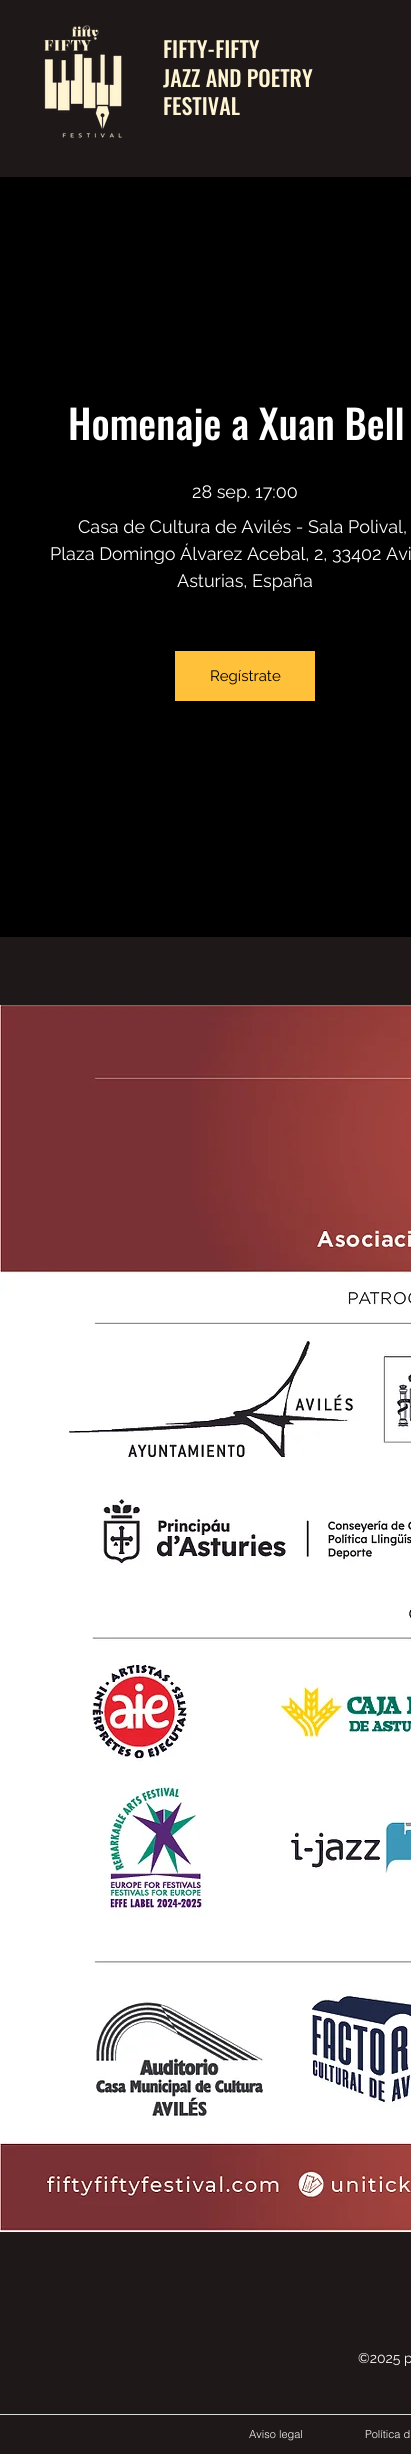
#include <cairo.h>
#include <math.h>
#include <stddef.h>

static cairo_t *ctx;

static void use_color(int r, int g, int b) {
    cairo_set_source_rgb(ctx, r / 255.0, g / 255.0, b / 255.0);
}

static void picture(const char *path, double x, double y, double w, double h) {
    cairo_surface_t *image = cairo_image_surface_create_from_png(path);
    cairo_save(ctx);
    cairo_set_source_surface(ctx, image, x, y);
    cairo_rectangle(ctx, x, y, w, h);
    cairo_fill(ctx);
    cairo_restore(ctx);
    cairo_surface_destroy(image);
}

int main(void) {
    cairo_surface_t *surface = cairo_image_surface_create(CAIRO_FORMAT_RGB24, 411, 2462);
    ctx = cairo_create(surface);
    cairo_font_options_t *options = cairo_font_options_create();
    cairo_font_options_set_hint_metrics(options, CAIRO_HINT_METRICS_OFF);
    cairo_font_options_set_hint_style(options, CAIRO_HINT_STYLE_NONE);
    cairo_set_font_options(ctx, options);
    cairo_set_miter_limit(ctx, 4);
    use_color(255, 255, 255);
    cairo_paint(ctx);
    use_color(30, 24, 25);
    cairo_rectangle(ctx, 0, 0, 411, 177);
    cairo_fill(ctx);
    picture("img1.png", 44, 25, 78, 113);
    cairo_select_font_face(ctx, "Oswald Medium", CAIRO_FONT_SLANT_NORMAL, CAIRO_FONT_WEIGHT_NORMAL);
    cairo_set_font_size(ctx, 22);
    use_color(255, 245, 211);
    cairo_move_to(ctx, 163, 58);
    cairo_show_text(ctx, "FIFTY-FIFTY");
    cairo_move_to(ctx, 163, 87);
    cairo_show_text(ctx, "JAZZ AND POETRY");
    cairo_move_to(ctx, 163, 115);
    cairo_show_text(ctx, "FESTIVAL");
    use_color(0, 0, 0);
    cairo_rectangle(ctx, 0, 177, 411, 760);
    cairo_fill(ctx);
    cairo_set_font_size(ctx, 40);
    use_color(255, 255, 255);
    cairo_move_to(ctx, 68, 440);
    cairo_show_text(ctx, "Homenaje a Xuan Bell");
    cairo_select_font_face(ctx, "Raleway", CAIRO_FONT_SLANT_NORMAL, CAIRO_FONT_WEIGHT_NORMAL);
    cairo_set_font_size(ctx, 18);
    cairo_move_to(ctx, 192, 498);
    cairo_show_text(ctx, "28 sep. 17:00");
    cairo_move_to(ctx, 78, 533);
    cairo_show_text(ctx, "Casa de Cultura de Avilés - Sala Polival,");
    cairo_move_to(ctx, 50, 560);
    cairo_show_text(ctx, "Plaza Domingo Álvarez Acebal, 2, 33402 Avi");
    cairo_move_to(ctx, 177, 587);
    cairo_show_text(ctx, "Asturias, España");
    use_color(255, 192, 58);
    cairo_rectangle(ctx, 175, 651, 140, 50);
    cairo_fill(ctx);
    cairo_set_font_size(ctx, 15);
    use_color(0, 0, 0);
    cairo_move_to(ctx, 210, 681);
    cairo_show_text(ctx, "Regístrate");
    use_color(30, 24, 25);
    cairo_rectangle(ctx, 0, 937, 411, 1517);
    cairo_fill(ctx);
    picture("img2.png", 0, 1005, 411, 1227);
    cairo_set_font_size(ctx, 14);
    use_color(255, 255, 255);
    cairo_move_to(ctx, 358, 2363);
    cairo_show_text(ctx, "©2025 p");
    use_color(219, 219, 219);
    cairo_rectangle(ctx, 0, 2414, 411, 1);
    cairo_fill(ctx);
    cairo_select_font_face(ctx, "helvetica Light", CAIRO_FONT_SLANT_NORMAL, CAIRO_FONT_WEIGHT_NORMAL);
    cairo_set_font_size(ctx, 11);
    use_color(255, 255, 255);
    cairo_move_to(ctx, 249, 2438);
    cairo_show_text(ctx, "Aviso legal");
    cairo_move_to(ctx, 365, 2438);
    cairo_show_text(ctx, "Política d");
    cairo_surface_write_to_png(surface, "result.png");
    cairo_font_options_destroy(options);
    cairo_destroy(ctx);
    cairo_surface_destroy(surface);
    return 0;
}
